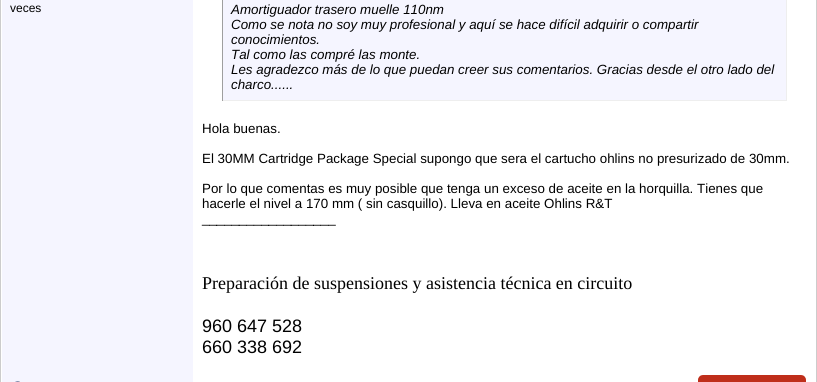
#include <cairo.h>
#include <math.h>
#include <stddef.h>

static cairo_t *ctx;

static void use_color(int r, int g, int b) {
    cairo_set_source_rgb(ctx, r / 255.0, g / 255.0, b / 255.0);
}

static void picture(const char *path, double x, double y, double w, double h) {
    cairo_surface_t *image = cairo_image_surface_create_from_png(path);
    cairo_save(ctx);
    cairo_set_source_surface(ctx, image, x, y);
    cairo_rectangle(ctx, x, y, w, h);
    cairo_fill(ctx);
    cairo_restore(ctx);
    cairo_surface_destroy(image);
}

int main(void) {
    cairo_surface_t *surface = cairo_image_surface_create(CAIRO_FORMAT_RGB24, 817, 382);
    ctx = cairo_create(surface);
    cairo_font_options_t *options = cairo_font_options_create();
    cairo_font_options_set_hint_metrics(options, CAIRO_HINT_METRICS_OFF);
    cairo_font_options_set_hint_style(options, CAIRO_HINT_STYLE_NONE);
    cairo_set_font_options(ctx, options);
    cairo_set_miter_limit(ctx, 4);
    use_color(255, 255, 255);
    cairo_paint(ctx);
    cairo_rectangle(ctx, 0.5, -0.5, 816, 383);
    use_color(204, 204, 204);
    cairo_set_line_width(ctx, 1);
    cairo_stroke(ctx);
    use_color(245, 245, 255);
    cairo_rectangle(ctx, 2, 0, 191, 382);
    cairo_fill(ctx);
    cairo_select_font_face(ctx, "Liberation Sans", CAIRO_FONT_SLANT_NORMAL, CAIRO_FONT_WEIGHT_NORMAL);
    cairo_set_font_size(ctx, 12);
    use_color(0, 0, 0);
    cairo_move_to(ctx, 10, 12);
    cairo_show_text(ctx, "veces");
    use_color(245, 245, 255);
    cairo_rectangle(ctx, 223, 0, 563, 100);
    cairo_fill(ctx);
    use_color(238, 238, 238);
    cairo_rectangle(ctx, 786, 0, 1, 101);
    cairo_fill(ctx);
    cairo_rectangle(ctx, 222, 100, 565, 1);
    cairo_fill(ctx);
    use_color(159, 159, 159);
    cairo_rectangle(ctx, 222, 0, 1, 101);
    cairo_fill(ctx);
    cairo_select_font_face(ctx, "Liberation Sans", CAIRO_FONT_SLANT_ITALIC, CAIRO_FONT_WEIGHT_NORMAL);
    cairo_set_font_size(ctx, 13.35);
    use_color(0, 0, 0);
    cairo_move_to(ctx, 231, 14);
    cairo_show_text(ctx, "Amortiguador trasero muelle 110nm");
    cairo_move_to(ctx, 231, 29);
    cairo_show_text(ctx, "Como se nota no soy muy profesional y aquí se hace difícil adquirir o compartir");
    cairo_move_to(ctx, 231, 44);
    cairo_show_text(ctx, "conocimientos.");
    cairo_move_to(ctx, 231, 59);
    cairo_show_text(ctx, "Tal como las compré las monte.");
    cairo_move_to(ctx, 231, 74);
    cairo_show_text(ctx, "Les agradezco más de lo que puedan creer sus comentarios. Gracias desde el otro lado del");
    cairo_move_to(ctx, 231, 89);
    cairo_show_text(ctx, "charco......");
    cairo_select_font_face(ctx, "Liberation Sans", CAIRO_FONT_SLANT_NORMAL, CAIRO_FONT_WEIGHT_NORMAL);
    cairo_move_to(ctx, 202, 133);
    cairo_show_text(ctx, "Hola buenas.");
    cairo_move_to(ctx, 202, 163);
    cairo_show_text(ctx, "El 30MM Cartridge Package Special supongo que sera el cartucho ohlins no presurizado de 30mm.");
    cairo_move_to(ctx, 202, 193);
    cairo_show_text(ctx, "Por lo que comentas es muy posible que tenga un exceso de aceite en la horquilla. Tienes que");
    cairo_move_to(ctx, 202, 208);
    cairo_show_text(ctx, "hacerle el nivel a 170 mm ( sin casquillo). Lleva en aceite Ohlins R&T");
    cairo_move_to(ctx, 202, 223);
    cairo_show_text(ctx, "__________________");
    cairo_select_font_face(ctx, "Liberation Serif", CAIRO_FONT_SLANT_NORMAL, CAIRO_FONT_WEIGHT_NORMAL);
    cairo_set_font_size(ctx, 18);
    cairo_move_to(ctx, 202, 289);
    cairo_show_text(ctx, "Preparación de suspensiones y asistencia técnica en circuito");
    cairo_select_font_face(ctx, "Liberation Sans", CAIRO_FONT_SLANT_NORMAL, CAIRO_FONT_WEIGHT_NORMAL);
    cairo_move_to(ctx, 202, 332);
    cairo_show_text(ctx, "960 647 528");
    cairo_move_to(ctx, 202, 353);
    cairo_show_text(ctx, "660 338 692");
    picture("img1.png", 15, 381, 5, 1);
    picture("img2.png", 698, 375, 108, 7);
    cairo_surface_write_to_png(surface, "result.png");
    cairo_font_options_destroy(options);
    cairo_destroy(ctx);
    cairo_surface_destroy(surface);
    return 0;
}
